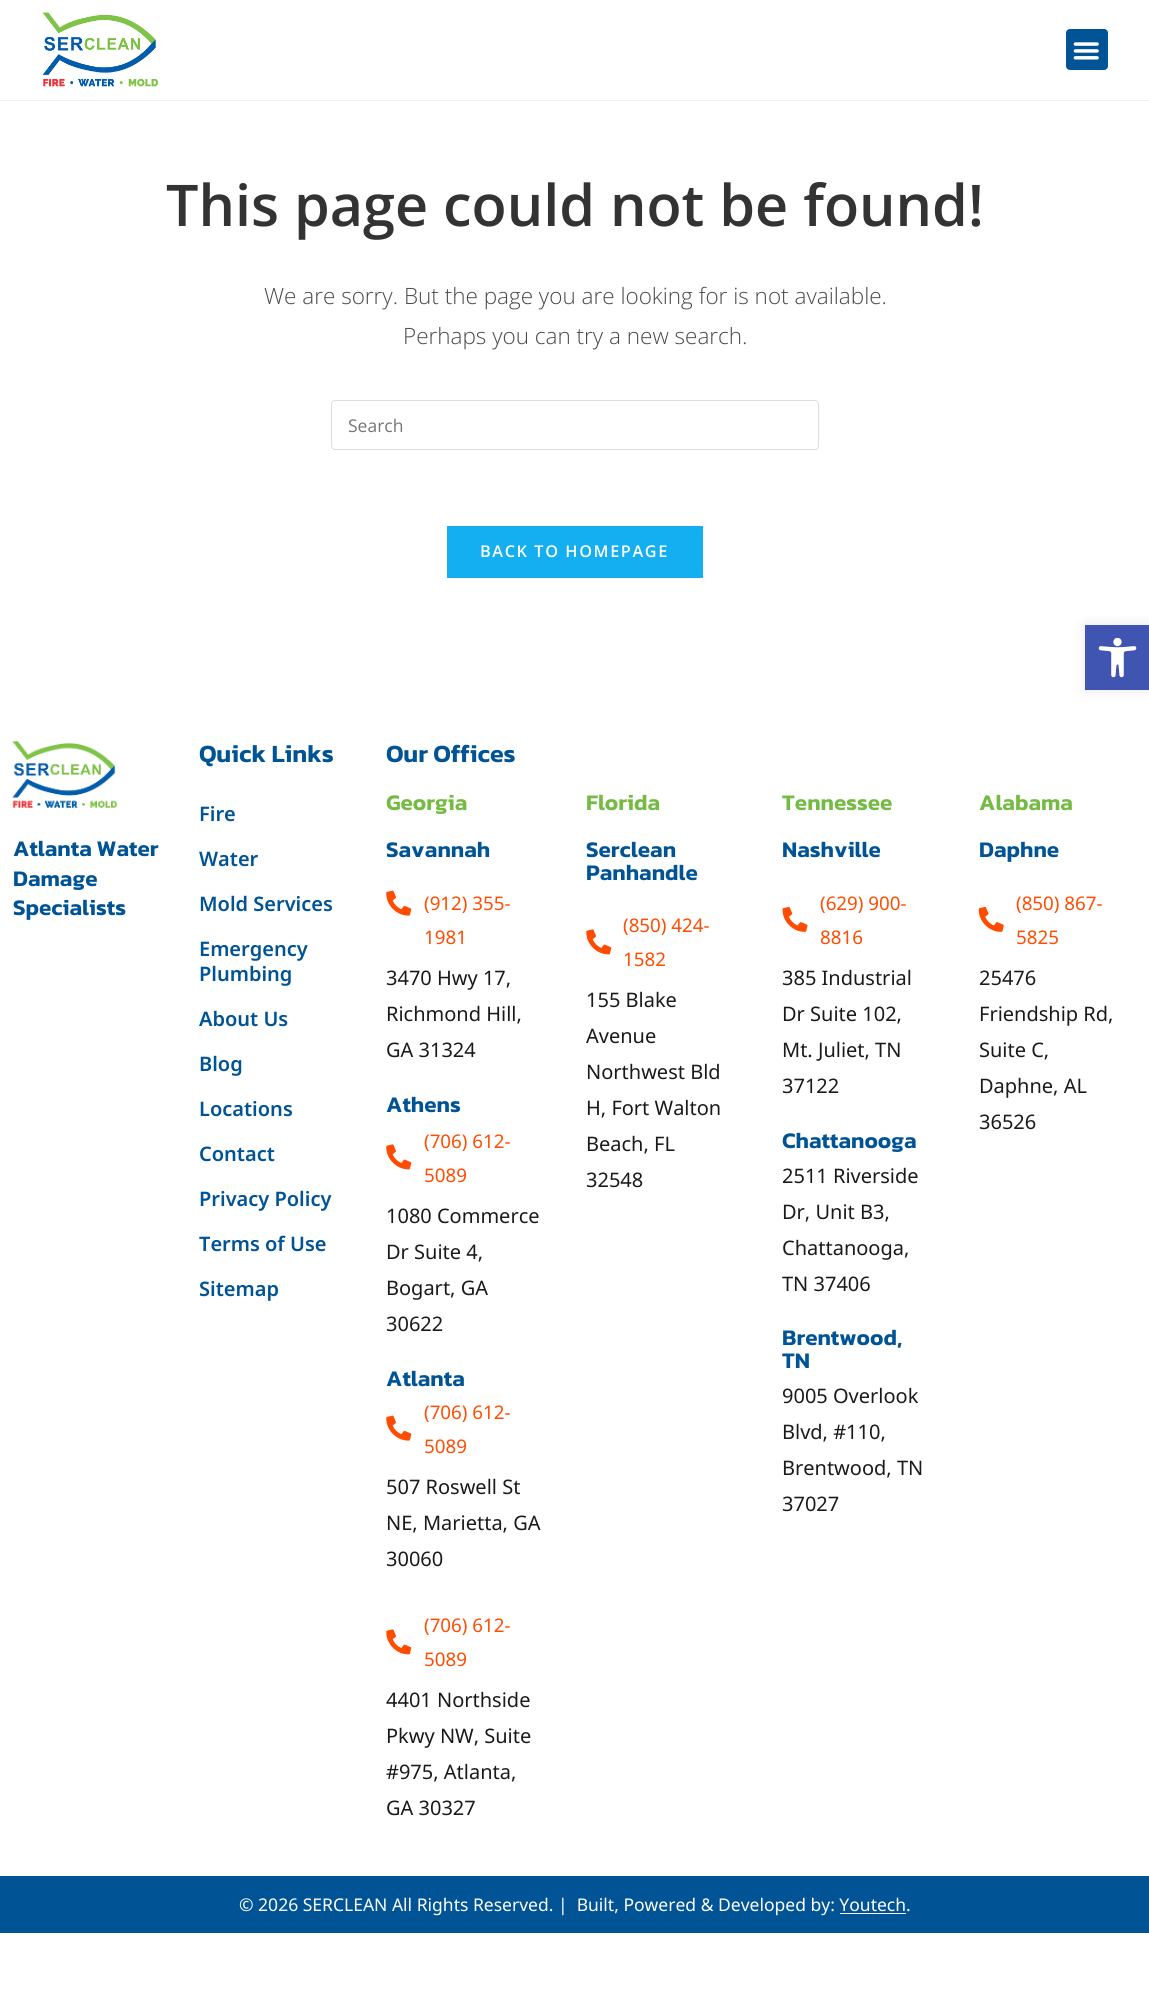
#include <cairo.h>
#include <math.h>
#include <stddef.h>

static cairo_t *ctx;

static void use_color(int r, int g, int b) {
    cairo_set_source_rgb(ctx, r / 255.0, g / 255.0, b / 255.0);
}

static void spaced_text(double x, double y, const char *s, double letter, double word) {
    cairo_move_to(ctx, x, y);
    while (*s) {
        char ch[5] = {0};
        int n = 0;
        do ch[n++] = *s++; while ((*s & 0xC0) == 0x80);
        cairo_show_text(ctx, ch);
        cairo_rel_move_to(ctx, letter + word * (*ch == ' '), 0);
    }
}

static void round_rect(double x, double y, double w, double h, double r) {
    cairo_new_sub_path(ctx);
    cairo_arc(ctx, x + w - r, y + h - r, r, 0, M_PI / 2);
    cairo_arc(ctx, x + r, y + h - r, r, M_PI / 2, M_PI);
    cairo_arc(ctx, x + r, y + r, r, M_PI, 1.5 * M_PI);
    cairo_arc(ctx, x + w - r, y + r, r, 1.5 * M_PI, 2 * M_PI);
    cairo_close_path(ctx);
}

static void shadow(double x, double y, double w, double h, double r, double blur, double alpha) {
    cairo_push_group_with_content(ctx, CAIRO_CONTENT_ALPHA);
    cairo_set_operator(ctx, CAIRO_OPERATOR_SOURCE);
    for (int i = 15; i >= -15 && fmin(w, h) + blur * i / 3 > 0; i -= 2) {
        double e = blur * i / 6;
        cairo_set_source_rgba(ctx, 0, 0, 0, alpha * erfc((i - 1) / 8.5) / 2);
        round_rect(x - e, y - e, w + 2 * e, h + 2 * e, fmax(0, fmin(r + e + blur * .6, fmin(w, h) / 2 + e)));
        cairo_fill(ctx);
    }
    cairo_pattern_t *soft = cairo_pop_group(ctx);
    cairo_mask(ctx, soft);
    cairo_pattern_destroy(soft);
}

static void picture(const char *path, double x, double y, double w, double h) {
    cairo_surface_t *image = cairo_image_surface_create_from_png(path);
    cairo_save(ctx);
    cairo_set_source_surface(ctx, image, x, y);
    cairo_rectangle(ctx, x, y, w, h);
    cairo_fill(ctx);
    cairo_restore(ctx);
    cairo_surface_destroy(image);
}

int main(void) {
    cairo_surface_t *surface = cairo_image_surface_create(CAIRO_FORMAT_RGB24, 1149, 1989);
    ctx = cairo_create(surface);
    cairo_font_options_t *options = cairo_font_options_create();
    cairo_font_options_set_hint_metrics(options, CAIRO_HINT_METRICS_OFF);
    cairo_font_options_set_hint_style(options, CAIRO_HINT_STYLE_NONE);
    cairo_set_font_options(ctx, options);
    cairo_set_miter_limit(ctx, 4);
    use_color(255, 255, 255);
    cairo_paint(ctx);
    use_color(241, 241, 241);
    cairo_rectangle(ctx, 0, 100, 1149, 1);
    cairo_fill(ctx);
    picture("img1.png", 42, 12, 116, 75);
    use_color(0, 83, 148);
    round_rect(1066, 29, 42, 41, 4);
    cairo_fill(ctx);
    picture("img2.png", 1073, 42, 26, 18);
    cairo_select_font_face(ctx, "Open Sans SemiBold", CAIRO_FONT_SLANT_NORMAL, CAIRO_FONT_WEIGHT_NORMAL);
    cairo_set_font_size(ctx, 57.5);
    use_color(51, 51, 51);
    cairo_move_to(ctx, 166, 226);
    cairo_show_text(ctx, "This page could not be found!");
    cairo_select_font_face(ctx, "Open Sans Light", CAIRO_FONT_SLANT_NORMAL, CAIRO_FONT_WEIGHT_NORMAL);
    cairo_set_font_size(ctx, 22.5);
    use_color(74, 74, 74);
    cairo_move_to(ctx, 264, 304);
    cairo_show_text(ctx, "We are sorry. But the page you are looking for is not available.");
    cairo_move_to(ctx, 403, 344);
    cairo_show_text(ctx, "Perhaps you can try a new search.");
    round_rect(331.5, 400.5, 487, 49, 3.5);
    use_color(221, 221, 221);
    cairo_set_line_width(ctx, 1);
    cairo_stroke(ctx);
    cairo_select_font_face(ctx, "Open Sans", CAIRO_FONT_SLANT_NORMAL, CAIRO_FONT_WEIGHT_NORMAL);
    cairo_set_font_size(ctx, 17.5);
    use_color(117, 117, 117);
    cairo_move_to(ctx, 348, 432);
    cairo_show_text(ctx, "Search");
    use_color(19, 175, 240);
    cairo_rectangle(ctx, 447, 526, 256, 52);
    cairo_fill(ctx);
    cairo_select_font_face(ctx, "Open Sans SemiBold", CAIRO_FONT_SLANT_NORMAL, CAIRO_FONT_WEIGHT_NORMAL);
    cairo_set_font_size(ctx, 16.25);
    use_color(255, 255, 255);
    spaced_text(480, 557, "BACK TO HOMEPAGE", 1.6, 0);
    picture("img3.png", 12, 741, 106, 67);
    cairo_select_font_face(ctx, "Kanit SemiBold", CAIRO_FONT_SLANT_NORMAL, CAIRO_FONT_WEIGHT_NORMAL);
    cairo_set_font_size(ctx, 22.5);
    use_color(0, 83, 148);
    cairo_move_to(ctx, 13, 856);
    cairo_show_text(ctx, "Atlanta Water");
    cairo_move_to(ctx, 13, 886);
    cairo_show_text(ctx, "Damage");
    cairo_move_to(ctx, 13, 915);
    cairo_show_text(ctx, "Specialists");
    cairo_set_font_size(ctx, 25);
    cairo_move_to(ctx, 199, 762);
    cairo_show_text(ctx, "Quick Links");
    cairo_select_font_face(ctx, "Noto Sans SemiBold", CAIRO_FONT_SLANT_NORMAL, CAIRO_FONT_WEIGHT_NORMAL);
    cairo_set_font_size(ctx, 20);
    cairo_move_to(ctx, 199, 821);
    cairo_show_text(ctx, "Fire");
    cairo_move_to(ctx, 199, 866);
    cairo_show_text(ctx, "Water");
    cairo_move_to(ctx, 199, 911);
    cairo_show_text(ctx, "Mold Services");
    cairo_move_to(ctx, 199, 956);
    cairo_show_text(ctx, "Emergency");
    cairo_move_to(ctx, 199, 981);
    cairo_show_text(ctx, "Plumbing");
    cairo_move_to(ctx, 199, 1026);
    cairo_show_text(ctx, "About Us");
    cairo_move_to(ctx, 199, 1071);
    cairo_show_text(ctx, "Blog");
    cairo_move_to(ctx, 199, 1116);
    cairo_show_text(ctx, "Locations");
    cairo_move_to(ctx, 199, 1161);
    cairo_show_text(ctx, "Contact");
    cairo_move_to(ctx, 199, 1206);
    cairo_show_text(ctx, "Privacy Policy");
    cairo_move_to(ctx, 199, 1251);
    cairo_show_text(ctx, "Terms of Use");
    cairo_move_to(ctx, 199, 1296);
    cairo_show_text(ctx, "Sitemap");
    cairo_select_font_face(ctx, "Kanit SemiBold", CAIRO_FONT_SLANT_NORMAL, CAIRO_FONT_WEIGHT_NORMAL);
    cairo_set_font_size(ctx, 25);
    cairo_move_to(ctx, 386, 762);
    cairo_show_text(ctx, "Our Offices");
    cairo_set_font_size(ctx, 22.5);
    use_color(116, 186, 67);
    cairo_move_to(ctx, 386, 810);
    cairo_show_text(ctx, "Georgia");
    use_color(0, 83, 148);
    cairo_move_to(ctx, 386, 857);
    cairo_show_text(ctx, "Savannah");
    picture("img4.png", 386, 890, 26, 26);
    cairo_select_font_face(ctx, "Noto Sans", CAIRO_FONT_SLANT_NORMAL, CAIRO_FONT_WEIGHT_NORMAL);
    cairo_set_font_size(ctx, 18.75);
    use_color(255, 76, 0);
    cairo_move_to(ctx, 424, 910);
    cairo_show_text(ctx, "(912) 355-");
    cairo_move_to(ctx, 424, 944);
    cairo_show_text(ctx, "1981");
    cairo_set_font_size(ctx, 20);
    use_color(26, 26, 26);
    cairo_move_to(ctx, 386, 985);
    cairo_show_text(ctx, "3470 Hwy 17,");
    cairo_move_to(ctx, 386, 1021);
    cairo_show_text(ctx, "Richmond Hill,");
    cairo_move_to(ctx, 386, 1057);
    cairo_show_text(ctx, "GA 31324");
    cairo_select_font_face(ctx, "Kanit SemiBold", CAIRO_FONT_SLANT_NORMAL, CAIRO_FONT_WEIGHT_NORMAL);
    cairo_set_font_size(ctx, 22.5);
    use_color(0, 83, 148);
    cairo_move_to(ctx, 386, 1112);
    cairo_show_text(ctx, "Athens");
    picture("img5.png", 386, 1144, 26, 26);
    cairo_select_font_face(ctx, "Noto Sans", CAIRO_FONT_SLANT_NORMAL, CAIRO_FONT_WEIGHT_NORMAL);
    cairo_set_font_size(ctx, 18.75);
    use_color(255, 76, 0);
    cairo_move_to(ctx, 424, 1148);
    cairo_show_text(ctx, "(706) 612-");
    cairo_move_to(ctx, 424, 1182);
    cairo_show_text(ctx, "5089");
    cairo_set_font_size(ctx, 20);
    use_color(26, 26, 26);
    cairo_move_to(ctx, 386, 1223);
    cairo_show_text(ctx, "1080 Commerce");
    cairo_move_to(ctx, 386, 1259);
    cairo_show_text(ctx, "Dr Suite 4,");
    cairo_move_to(ctx, 386, 1295);
    cairo_show_text(ctx, "Bogart, GA");
    cairo_move_to(ctx, 386, 1331);
    cairo_show_text(ctx, "30622");
    cairo_select_font_face(ctx, "Kanit SemiBold", CAIRO_FONT_SLANT_NORMAL, CAIRO_FONT_WEIGHT_NORMAL);
    cairo_set_font_size(ctx, 22.5);
    use_color(0, 83, 148);
    cairo_move_to(ctx, 386, 1386);
    cairo_show_text(ctx, "Atlanta");
    picture("img4.png", 386, 1415, 26, 26);
    cairo_select_font_face(ctx, "Noto Sans", CAIRO_FONT_SLANT_NORMAL, CAIRO_FONT_WEIGHT_NORMAL);
    cairo_set_font_size(ctx, 18.75);
    use_color(255, 76, 0);
    cairo_move_to(ctx, 424, 1419);
    cairo_show_text(ctx, "(706) 612-");
    cairo_move_to(ctx, 424, 1453);
    cairo_show_text(ctx, "5089");
    cairo_set_font_size(ctx, 20);
    use_color(26, 26, 26);
    cairo_move_to(ctx, 386, 1494);
    cairo_show_text(ctx, "507 Roswell St");
    cairo_move_to(ctx, 386, 1530);
    cairo_show_text(ctx, "NE, Marietta, GA");
    cairo_move_to(ctx, 386, 1566);
    cairo_show_text(ctx, "30060");
    picture("img5.png", 386, 1629, 26, 26);
    cairo_set_font_size(ctx, 18.75);
    use_color(255, 76, 0);
    cairo_move_to(ctx, 424, 1632);
    cairo_show_text(ctx, "(706) 612-");
    cairo_move_to(ctx, 424, 1666);
    cairo_show_text(ctx, "5089");
    cairo_set_font_size(ctx, 20);
    use_color(26, 26, 26);
    cairo_move_to(ctx, 386, 1707);
    cairo_show_text(ctx, "4401 Northside");
    cairo_move_to(ctx, 386, 1743);
    cairo_show_text(ctx, "Pkwy NW, Suite");
    cairo_move_to(ctx, 386, 1779);
    cairo_show_text(ctx, "#975, Atlanta,");
    cairo_move_to(ctx, 386, 1815);
    cairo_show_text(ctx, "GA 30327");
    cairo_select_font_face(ctx, "Kanit SemiBold", CAIRO_FONT_SLANT_NORMAL, CAIRO_FONT_WEIGHT_NORMAL);
    cairo_set_font_size(ctx, 22.5);
    use_color(116, 186, 67);
    cairo_move_to(ctx, 586, 810);
    cairo_show_text(ctx, "Florida");
    use_color(0, 83, 148);
    cairo_move_to(ctx, 586, 857);
    cairo_show_text(ctx, "Serclean");
    cairo_move_to(ctx, 586, 880);
    cairo_show_text(ctx, "Panhandle");
    picture("img5.png", 586, 929, 26, 26);
    cairo_select_font_face(ctx, "Noto Sans", CAIRO_FONT_SLANT_NORMAL, CAIRO_FONT_WEIGHT_NORMAL);
    cairo_set_font_size(ctx, 18.75);
    use_color(255, 76, 0);
    cairo_move_to(ctx, 623, 932);
    cairo_show_text(ctx, "(850) 424-");
    cairo_move_to(ctx, 623, 966);
    cairo_show_text(ctx, "1582");
    cairo_set_font_size(ctx, 20);
    use_color(26, 26, 26);
    cairo_move_to(ctx, 586, 1007);
    cairo_show_text(ctx, "155 Blake");
    cairo_move_to(ctx, 586, 1043);
    cairo_show_text(ctx, "Avenue");
    cairo_move_to(ctx, 586, 1079);
    cairo_show_text(ctx, "Northwest Bld");
    cairo_move_to(ctx, 586, 1115);
    cairo_show_text(ctx, "H, Fort Walton");
    cairo_move_to(ctx, 586, 1151);
    cairo_show_text(ctx, "Beach, FL");
    cairo_move_to(ctx, 586, 1187);
    cairo_show_text(ctx, "32548");
    cairo_select_font_face(ctx, "Kanit SemiBold", CAIRO_FONT_SLANT_NORMAL, CAIRO_FONT_WEIGHT_NORMAL);
    cairo_set_font_size(ctx, 22.5);
    use_color(116, 186, 67);
    cairo_move_to(ctx, 782, 810);
    cairo_show_text(ctx, "Tennessee");
    use_color(0, 83, 148);
    cairo_move_to(ctx, 782, 857);
    cairo_show_text(ctx, "Nashville");
    picture("img6.png", 782, 906, 26, 26);
    cairo_select_font_face(ctx, "Noto Sans", CAIRO_FONT_SLANT_NORMAL, CAIRO_FONT_WEIGHT_NORMAL);
    cairo_set_font_size(ctx, 18.75);
    use_color(255, 76, 0);
    cairo_move_to(ctx, 820, 910);
    cairo_show_text(ctx, "(629) 900-");
    cairo_move_to(ctx, 820, 944);
    cairo_show_text(ctx, "8816");
    cairo_set_font_size(ctx, 20);
    use_color(26, 26, 26);
    cairo_move_to(ctx, 782, 985);
    cairo_show_text(ctx, "385 Industrial");
    cairo_move_to(ctx, 782, 1021);
    cairo_show_text(ctx, "Dr Suite 102,");
    cairo_move_to(ctx, 782, 1057);
    cairo_show_text(ctx, "Mt. Juliet, TN");
    cairo_move_to(ctx, 782, 1093);
    cairo_show_text(ctx, "37122");
    cairo_select_font_face(ctx, "Kanit SemiBold", CAIRO_FONT_SLANT_NORMAL, CAIRO_FONT_WEIGHT_NORMAL);
    cairo_set_font_size(ctx, 22.5);
    use_color(0, 83, 148);
    cairo_move_to(ctx, 782, 1148);
    cairo_show_text(ctx, "Chattanooga");
    cairo_select_font_face(ctx, "Noto Sans", CAIRO_FONT_SLANT_NORMAL, CAIRO_FONT_WEIGHT_NORMAL);
    cairo_set_font_size(ctx, 20);
    use_color(26, 26, 26);
    cairo_move_to(ctx, 782, 1183);
    cairo_show_text(ctx, "2511 Riverside");
    cairo_move_to(ctx, 782, 1219);
    cairo_show_text(ctx, "Dr, Unit B3,");
    cairo_move_to(ctx, 782, 1255);
    cairo_show_text(ctx, "Chattanooga,");
    cairo_move_to(ctx, 782, 1291);
    cairo_show_text(ctx, "TN 37406");
    cairo_select_font_face(ctx, "Kanit SemiBold", CAIRO_FONT_SLANT_NORMAL, CAIRO_FONT_WEIGHT_NORMAL);
    cairo_set_font_size(ctx, 22.5);
    use_color(0, 83, 148);
    cairo_move_to(ctx, 782, 1345);
    cairo_show_text(ctx, "Brentwood,");
    cairo_move_to(ctx, 782, 1368);
    cairo_show_text(ctx, "TN");
    cairo_select_font_face(ctx, "Noto Sans", CAIRO_FONT_SLANT_NORMAL, CAIRO_FONT_WEIGHT_NORMAL);
    cairo_set_font_size(ctx, 20);
    use_color(26, 26, 26);
    cairo_move_to(ctx, 782, 1403);
    cairo_show_text(ctx, "9005 Overlook");
    cairo_move_to(ctx, 782, 1439);
    cairo_show_text(ctx, "Blvd, #110,");
    cairo_move_to(ctx, 782, 1475);
    cairo_show_text(ctx, "Brentwood, TN");
    cairo_move_to(ctx, 782, 1511);
    cairo_show_text(ctx, "37027");
    cairo_select_font_face(ctx, "Kanit SemiBold", CAIRO_FONT_SLANT_NORMAL, CAIRO_FONT_WEIGHT_NORMAL);
    cairo_set_font_size(ctx, 22.5);
    use_color(116, 186, 67);
    cairo_move_to(ctx, 979, 810);
    cairo_show_text(ctx, "Alabama");
    use_color(0, 83, 148);
    cairo_move_to(ctx, 979, 857);
    cairo_show_text(ctx, "Daphne");
    picture("img7.png", 978, 906, 26, 26);
    cairo_select_font_face(ctx, "Noto Sans", CAIRO_FONT_SLANT_NORMAL, CAIRO_FONT_WEIGHT_NORMAL);
    cairo_set_font_size(ctx, 18.75);
    use_color(255, 76, 0);
    cairo_move_to(ctx, 1016, 910);
    cairo_show_text(ctx, "(850) 867-");
    cairo_move_to(ctx, 1016, 944);
    cairo_show_text(ctx, "5825");
    cairo_set_font_size(ctx, 20);
    use_color(26, 26, 26);
    cairo_move_to(ctx, 979, 985);
    cairo_show_text(ctx, "25476");
    cairo_move_to(ctx, 979, 1021);
    cairo_show_text(ctx, "Friendship Rd,");
    cairo_move_to(ctx, 979, 1057);
    cairo_show_text(ctx, "Suite C,");
    cairo_move_to(ctx, 979, 1093);
    cairo_show_text(ctx, "Daphne, AL");
    cairo_move_to(ctx, 979, 1129);
    cairo_show_text(ctx, "36526");
    use_color(0, 83, 148);
    cairo_rectangle(ctx, 0, 1876, 1149, 57);
    cairo_fill(ctx);
    cairo_set_font_size(ctx, 17.5);
    use_color(255, 255, 255);
    cairo_move_to(ctx, 239, 1911);
    cairo_show_text(ctx, "© 2026 SERCLEAN All Rights Reserved. |  Built, Powered & Developed by: Youtech.");
    cairo_rectangle(ctx, 840, 1913, 66, 1);
    cairo_fill(ctx);
    use_color(0, 0, 0);
    shadow(1085, 625, 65, 65, 0, 6, 0.1);
    use_color(64, 84, 178);
    cairo_rectangle(ctx, 1085, 625, 64, 65);
    cairo_fill(ctx);
    picture("img8.png", 1098, 638, 39, 40);
    cairo_surface_write_to_png(surface, "result.png");
    cairo_font_options_destroy(options);
    cairo_destroy(ctx);
    cairo_surface_destroy(surface);
    return 0;
}
